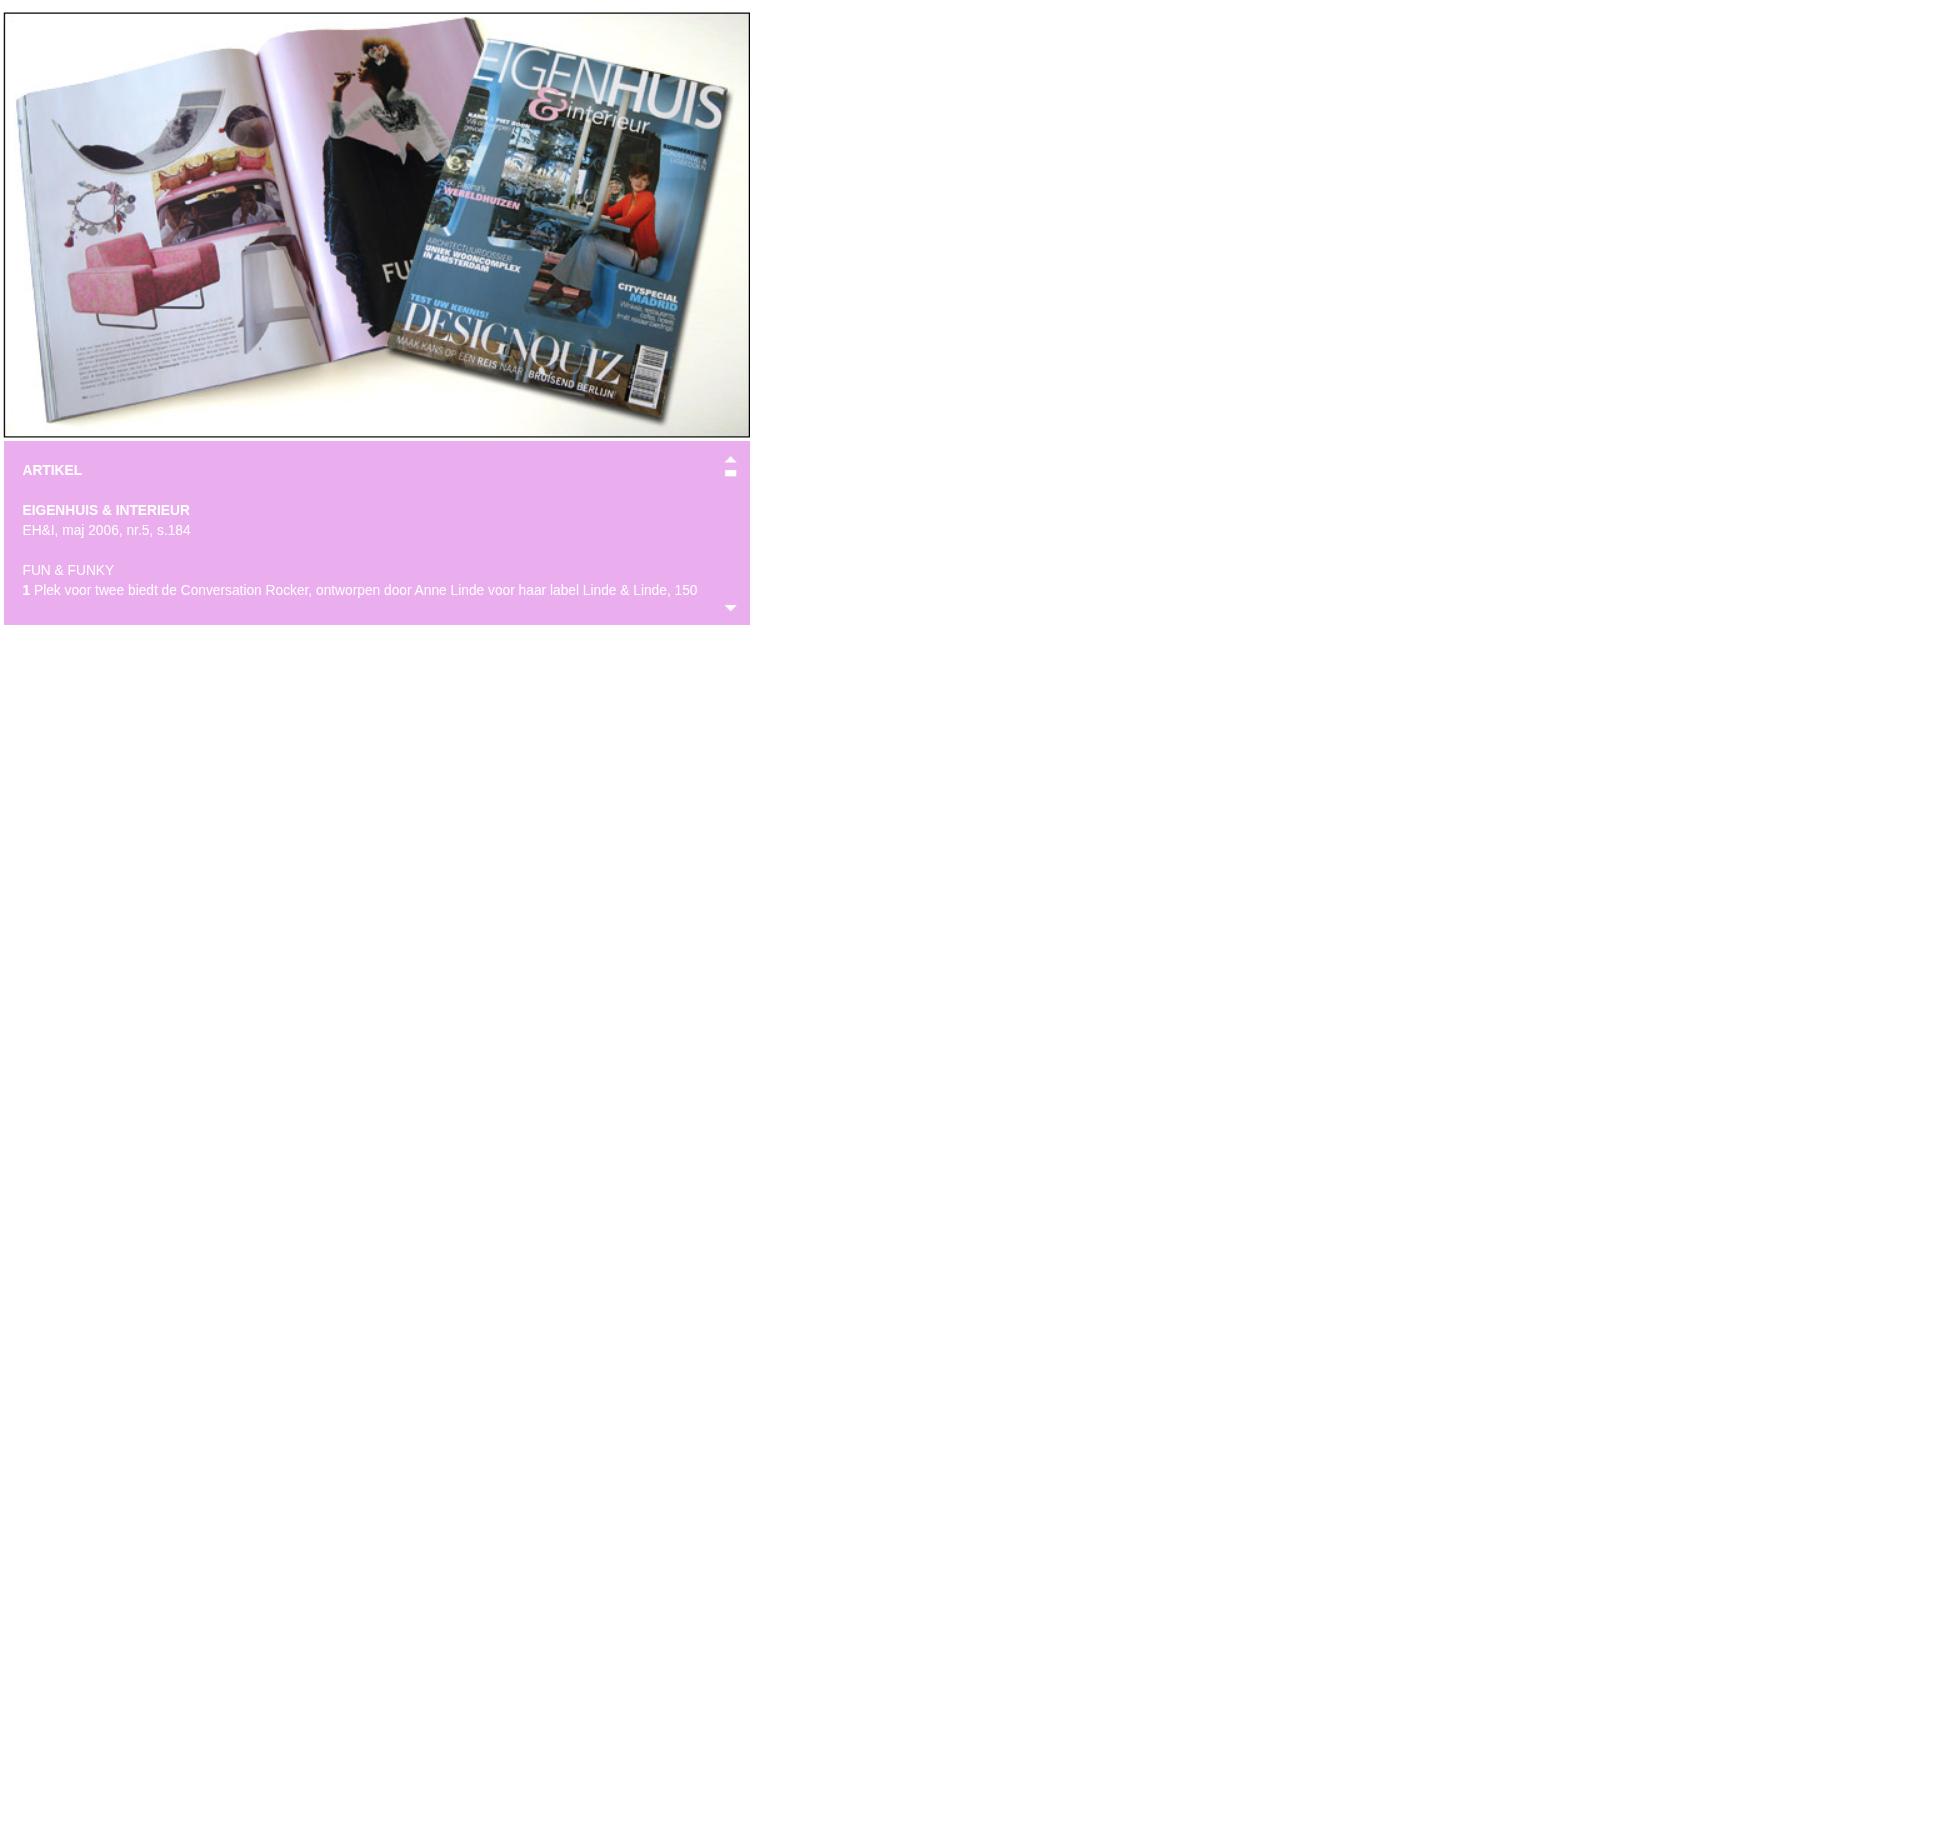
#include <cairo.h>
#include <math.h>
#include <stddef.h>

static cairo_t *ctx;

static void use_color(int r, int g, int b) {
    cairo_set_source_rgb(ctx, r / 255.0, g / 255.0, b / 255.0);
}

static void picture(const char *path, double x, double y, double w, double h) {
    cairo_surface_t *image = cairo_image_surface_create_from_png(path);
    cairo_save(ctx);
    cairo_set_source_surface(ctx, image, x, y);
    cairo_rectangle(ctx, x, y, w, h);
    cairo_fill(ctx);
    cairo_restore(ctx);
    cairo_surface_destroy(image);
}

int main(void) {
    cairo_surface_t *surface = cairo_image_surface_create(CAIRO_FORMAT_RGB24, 1934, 1835);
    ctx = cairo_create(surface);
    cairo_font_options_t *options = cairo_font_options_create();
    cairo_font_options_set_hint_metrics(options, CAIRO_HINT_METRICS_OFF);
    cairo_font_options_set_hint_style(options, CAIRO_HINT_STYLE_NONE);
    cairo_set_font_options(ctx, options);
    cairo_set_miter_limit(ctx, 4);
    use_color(255, 255, 255);
    cairo_paint(ctx);
    picture("img1.png", 3, 12, 747, 426);
    use_color(234, 174, 238);
    cairo_rectangle(ctx, 4, 441, 746, 13);
    cairo_fill(ctx);
    cairo_rectangle(ctx, 4, 454, 746, 159);
    cairo_fill(ctx);
    picture("img2.png", 23, 456, 714, 156);
    cairo_rectangle(ctx, 4, 613, 746, 12);
    cairo_fill(ctx);
    cairo_surface_write_to_png(surface, "result.png");
    cairo_font_options_destroy(options);
    cairo_destroy(ctx);
    cairo_surface_destroy(surface);
    return 0;
}
